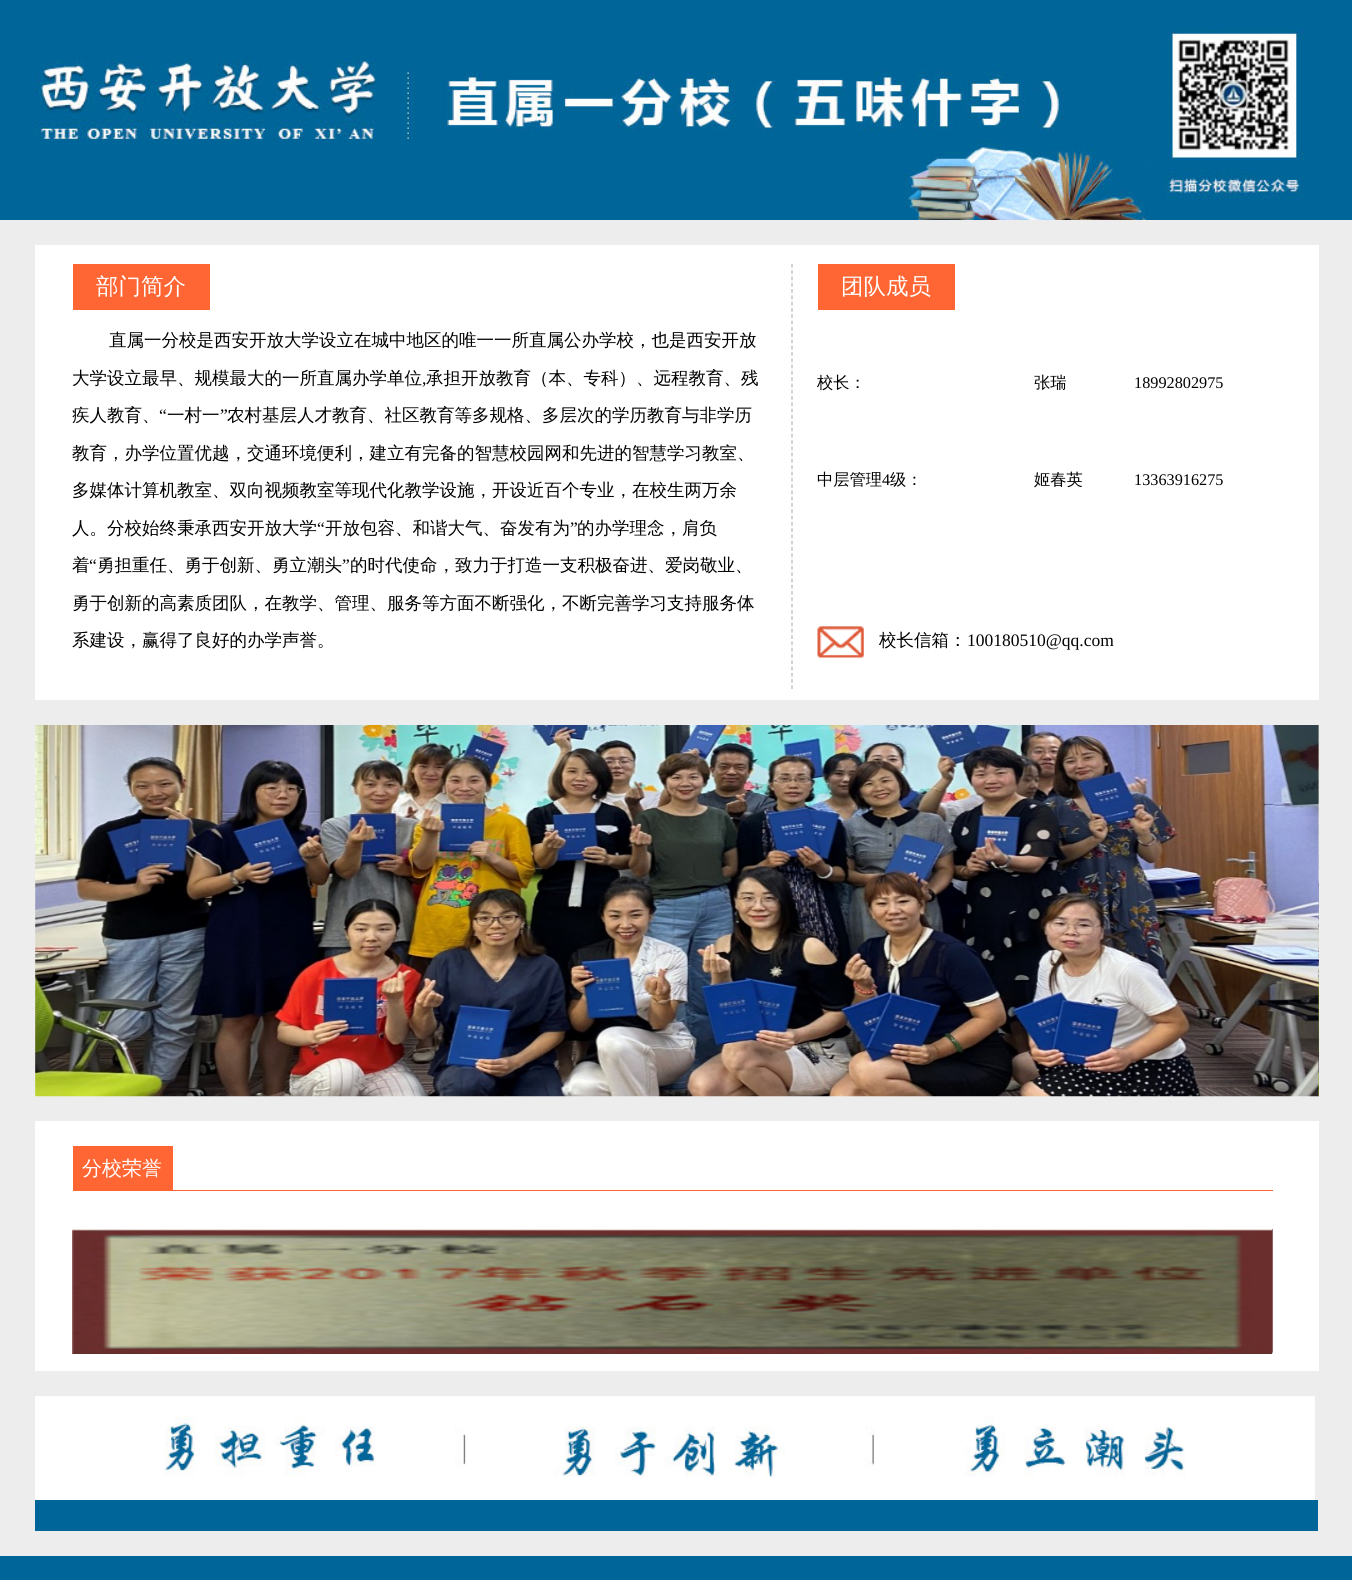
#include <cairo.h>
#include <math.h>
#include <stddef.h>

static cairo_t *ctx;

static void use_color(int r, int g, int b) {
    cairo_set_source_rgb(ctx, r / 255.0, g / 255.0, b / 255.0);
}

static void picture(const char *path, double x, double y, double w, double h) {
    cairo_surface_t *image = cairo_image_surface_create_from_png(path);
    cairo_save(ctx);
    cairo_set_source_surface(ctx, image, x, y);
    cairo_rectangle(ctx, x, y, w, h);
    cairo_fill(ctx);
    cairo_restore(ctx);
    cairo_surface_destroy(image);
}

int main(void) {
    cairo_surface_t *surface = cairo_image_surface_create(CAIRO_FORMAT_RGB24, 1352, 1580);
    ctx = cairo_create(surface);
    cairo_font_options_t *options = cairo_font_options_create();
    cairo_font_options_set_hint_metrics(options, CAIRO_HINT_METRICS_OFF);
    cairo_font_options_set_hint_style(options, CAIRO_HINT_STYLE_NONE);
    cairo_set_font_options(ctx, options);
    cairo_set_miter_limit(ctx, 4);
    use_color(237, 237, 237);
    cairo_paint(ctx);
    use_color(0, 102, 153);
    cairo_rectangle(ctx, 0, 0, 1352, 220);
    cairo_fill(ctx);
    picture("img1.png", 35, 30, 1270, 190);
    use_color(255, 255, 255);
    cairo_rectangle(ctx, 35, 245, 1284, 455);
    cairo_fill(ctx);
    cairo_new_path(ctx);
    cairo_move_to(ctx, 792, 264);
    cairo_line_to(ctx, 792, 689);
    use_color(182, 182, 182);
    cairo_set_line_width(ctx, 1.2);
    cairo_set_dash(ctx, (double[]){3.75, 2.54}, 2, 0);
    cairo_stroke(ctx);
    use_color(255, 102, 51);
    cairo_rectangle(ctx, 73, 264, 137, 46);
    cairo_fill(ctx);
    cairo_select_font_face(ctx, "WenQuanYi Zen Hei Medium", CAIRO_FONT_SLANT_NORMAL, CAIRO_FONT_WEIGHT_NORMAL);
    cairo_set_font_size(ctx, 22.5);
    use_color(255, 255, 255);
    cairo_move_to(ctx, 96, 294);
    cairo_show_text(ctx, "部门简介");
    cairo_set_font_size(ctx, 17.5);
    use_color(0, 0, 0);
    cairo_move_to(ctx, 109, 346);
    cairo_show_text(ctx, "直属一分校是西安开放大学设立在城中地区的唯一一所直属公办学校，也是西安开放");
    cairo_move_to(ctx, 72, 384);
    cairo_show_text(ctx, "大学设立最早、规模最大的一所直属办学单位");
    cairo_select_font_face(ctx, "Liberation Serif", CAIRO_FONT_SLANT_NORMAL, CAIRO_FONT_WEIGHT_NORMAL);
    cairo_move_to(ctx, 422, 384);
    cairo_show_text(ctx, ",");
    cairo_select_font_face(ctx, "WenQuanYi Zen Hei Medium", CAIRO_FONT_SLANT_NORMAL, CAIRO_FONT_WEIGHT_NORMAL);
    cairo_move_to(ctx, 426, 384);
    cairo_show_text(ctx, "承担开放教育（本、专科）、远程教育、残");
    cairo_move_to(ctx, 72, 421);
    cairo_show_text(ctx, "疾人教育、");
    cairo_select_font_face(ctx, "Liberation Serif", CAIRO_FONT_SLANT_NORMAL, CAIRO_FONT_WEIGHT_NORMAL);
    cairo_move_to(ctx, 159, 421);
    cairo_show_text(ctx, "“");
    cairo_select_font_face(ctx, "WenQuanYi Zen Hei Medium", CAIRO_FONT_SLANT_NORMAL, CAIRO_FONT_WEIGHT_NORMAL);
    cairo_move_to(ctx, 167, 421);
    cairo_show_text(ctx, "一村一");
    cairo_select_font_face(ctx, "Liberation Serif", CAIRO_FONT_SLANT_NORMAL, CAIRO_FONT_WEIGHT_NORMAL);
    cairo_move_to(ctx, 220, 421);
    cairo_show_text(ctx, "”");
    cairo_select_font_face(ctx, "WenQuanYi Zen Hei Medium", CAIRO_FONT_SLANT_NORMAL, CAIRO_FONT_WEIGHT_NORMAL);
    cairo_move_to(ctx, 227, 421);
    cairo_show_text(ctx, "农村基层人才教育、社区教育等多规格、多层次的学历教育与非学历");
    cairo_move_to(ctx, 72, 459);
    cairo_show_text(ctx, "教育，办学位置优越，交通环境便利，建立有完备的智慧校园网和先进的智慧学习教室、");
    cairo_move_to(ctx, 72, 496);
    cairo_show_text(ctx, "多媒体计算机教室、双向视频教室等现代化教学设施，开设近百个专业，在校生两万余");
    cairo_move_to(ctx, 72, 534);
    cairo_show_text(ctx, "人。分校始终秉承西安开放大学");
    cairo_select_font_face(ctx, "Liberation Serif", CAIRO_FONT_SLANT_NORMAL, CAIRO_FONT_WEIGHT_NORMAL);
    cairo_move_to(ctx, 317, 534);
    cairo_show_text(ctx, "“");
    cairo_select_font_face(ctx, "WenQuanYi Zen Hei Medium", CAIRO_FONT_SLANT_NORMAL, CAIRO_FONT_WEIGHT_NORMAL);
    cairo_move_to(ctx, 325, 534);
    cairo_show_text(ctx, "开放包容、和谐大气、奋发有为");
    cairo_select_font_face(ctx, "Liberation Serif", CAIRO_FONT_SLANT_NORMAL, CAIRO_FONT_WEIGHT_NORMAL);
    cairo_move_to(ctx, 570, 534);
    cairo_show_text(ctx, "”");
    cairo_select_font_face(ctx, "WenQuanYi Zen Hei Medium", CAIRO_FONT_SLANT_NORMAL, CAIRO_FONT_WEIGHT_NORMAL);
    cairo_move_to(ctx, 577, 534);
    cairo_show_text(ctx, "的办学理念，肩负");
    cairo_move_to(ctx, 72, 571);
    cairo_show_text(ctx, "着");
    cairo_select_font_face(ctx, "Liberation Serif", CAIRO_FONT_SLANT_NORMAL, CAIRO_FONT_WEIGHT_NORMAL);
    cairo_move_to(ctx, 89, 571);
    cairo_show_text(ctx, "“");
    cairo_select_font_face(ctx, "WenQuanYi Zen Hei Medium", CAIRO_FONT_SLANT_NORMAL, CAIRO_FONT_WEIGHT_NORMAL);
    cairo_move_to(ctx, 97, 571);
    cairo_show_text(ctx, "勇担重任、勇于创新、勇立潮头");
    cairo_select_font_face(ctx, "Liberation Serif", CAIRO_FONT_SLANT_NORMAL, CAIRO_FONT_WEIGHT_NORMAL);
    cairo_move_to(ctx, 342, 571);
    cairo_show_text(ctx, "”");
    cairo_select_font_face(ctx, "WenQuanYi Zen Hei Medium", CAIRO_FONT_SLANT_NORMAL, CAIRO_FONT_WEIGHT_NORMAL);
    cairo_move_to(ctx, 350, 571);
    cairo_show_text(ctx, "的时代使命，致力于打造一支积极奋进、爱岗敬业、");
    cairo_move_to(ctx, 72, 609);
    cairo_show_text(ctx, "勇于创新的高素质团队，在教学、管理、服务等方面不断强化，不断完善学习支持服务体");
    cairo_move_to(ctx, 72, 646);
    cairo_show_text(ctx, "系建设，赢得了良好的办学声誉。");
    use_color(255, 102, 51);
    cairo_rectangle(ctx, 818, 264, 137, 46);
    cairo_fill(ctx);
    cairo_set_font_size(ctx, 22.5);
    use_color(255, 255, 255);
    cairo_move_to(ctx, 841, 294);
    cairo_show_text(ctx, "团队成员");
    cairo_set_font_size(ctx, 16.25);
    use_color(0, 0, 0);
    cairo_move_to(ctx, 817, 388);
    cairo_show_text(ctx, "校长：");
    cairo_move_to(ctx, 1034, 388);
    cairo_show_text(ctx, "张瑞");
    cairo_select_font_face(ctx, "Liberation Serif", CAIRO_FONT_SLANT_NORMAL, CAIRO_FONT_WEIGHT_NORMAL);
    cairo_move_to(ctx, 1134, 388);
    cairo_show_text(ctx, "18992802975");
    cairo_select_font_face(ctx, "WenQuanYi Zen Hei Medium", CAIRO_FONT_SLANT_NORMAL, CAIRO_FONT_WEIGHT_NORMAL);
    cairo_move_to(ctx, 817, 485);
    cairo_show_text(ctx, "中层管理");
    cairo_select_font_face(ctx, "Liberation Serif", CAIRO_FONT_SLANT_NORMAL, CAIRO_FONT_WEIGHT_NORMAL);
    cairo_move_to(ctx, 882, 485);
    cairo_show_text(ctx, "4");
    cairo_select_font_face(ctx, "WenQuanYi Zen Hei Medium", CAIRO_FONT_SLANT_NORMAL, CAIRO_FONT_WEIGHT_NORMAL);
    cairo_move_to(ctx, 890, 485);
    cairo_show_text(ctx, "级：");
    cairo_move_to(ctx, 1034, 485);
    cairo_show_text(ctx, "姬春英");
    cairo_select_font_face(ctx, "Liberation Serif", CAIRO_FONT_SLANT_NORMAL, CAIRO_FONT_WEIGHT_NORMAL);
    cairo_move_to(ctx, 1134, 485);
    cairo_show_text(ctx, "13363916275");
    picture("img2.png", 817, 626, 47, 32);
    cairo_select_font_face(ctx, "WenQuanYi Zen Hei Medium", CAIRO_FONT_SLANT_NORMAL, CAIRO_FONT_WEIGHT_NORMAL);
    cairo_set_font_size(ctx, 17.5);
    cairo_move_to(ctx, 879, 646);
    cairo_show_text(ctx, "校长信箱：");
    cairo_select_font_face(ctx, "Liberation Serif", CAIRO_FONT_SLANT_NORMAL, CAIRO_FONT_WEIGHT_NORMAL);
    cairo_move_to(ctx, 967, 646);
    cairo_show_text(ctx, "100180510@qq.com");
    picture("img3.png", 35, 725, 1284, 372);
    picture("img4.png", 1318, 725, 1, 372);
    use_color(255, 255, 255);
    cairo_rectangle(ctx, 35, 1121, 1284, 250);
    cairo_fill(ctx);
    use_color(255, 102, 51);
    cairo_rectangle(ctx, 73, 1190, 1200, 1);
    cairo_fill(ctx);
    cairo_rectangle(ctx, 73, 1146, 100, 44);
    cairo_fill(ctx);
    cairo_select_font_face(ctx, "WenQuanYi Zen Hei Medium", CAIRO_FONT_SLANT_NORMAL, CAIRO_FONT_WEIGHT_NORMAL);
    cairo_set_font_size(ctx, 20);
    use_color(255, 255, 255);
    cairo_move_to(ctx, 82, 1175);
    cairo_show_text(ctx, "分校荣誉");
    picture("img5.png", 72, 1229, 1201, 125);
    picture("img6.png", 1272, 1229, 1, 125);
    picture("img7.png", 35, 1396, 1280, 104);
    use_color(0, 102, 153);
    cairo_rectangle(ctx, 35, 1500, 1283, 31);
    cairo_fill(ctx);
    cairo_rectangle(ctx, 0, 1556, 1352, 24);
    cairo_fill(ctx);
    cairo_surface_write_to_png(surface, "result.png");
    cairo_font_options_destroy(options);
    cairo_destroy(ctx);
    cairo_surface_destroy(surface);
    return 0;
}
